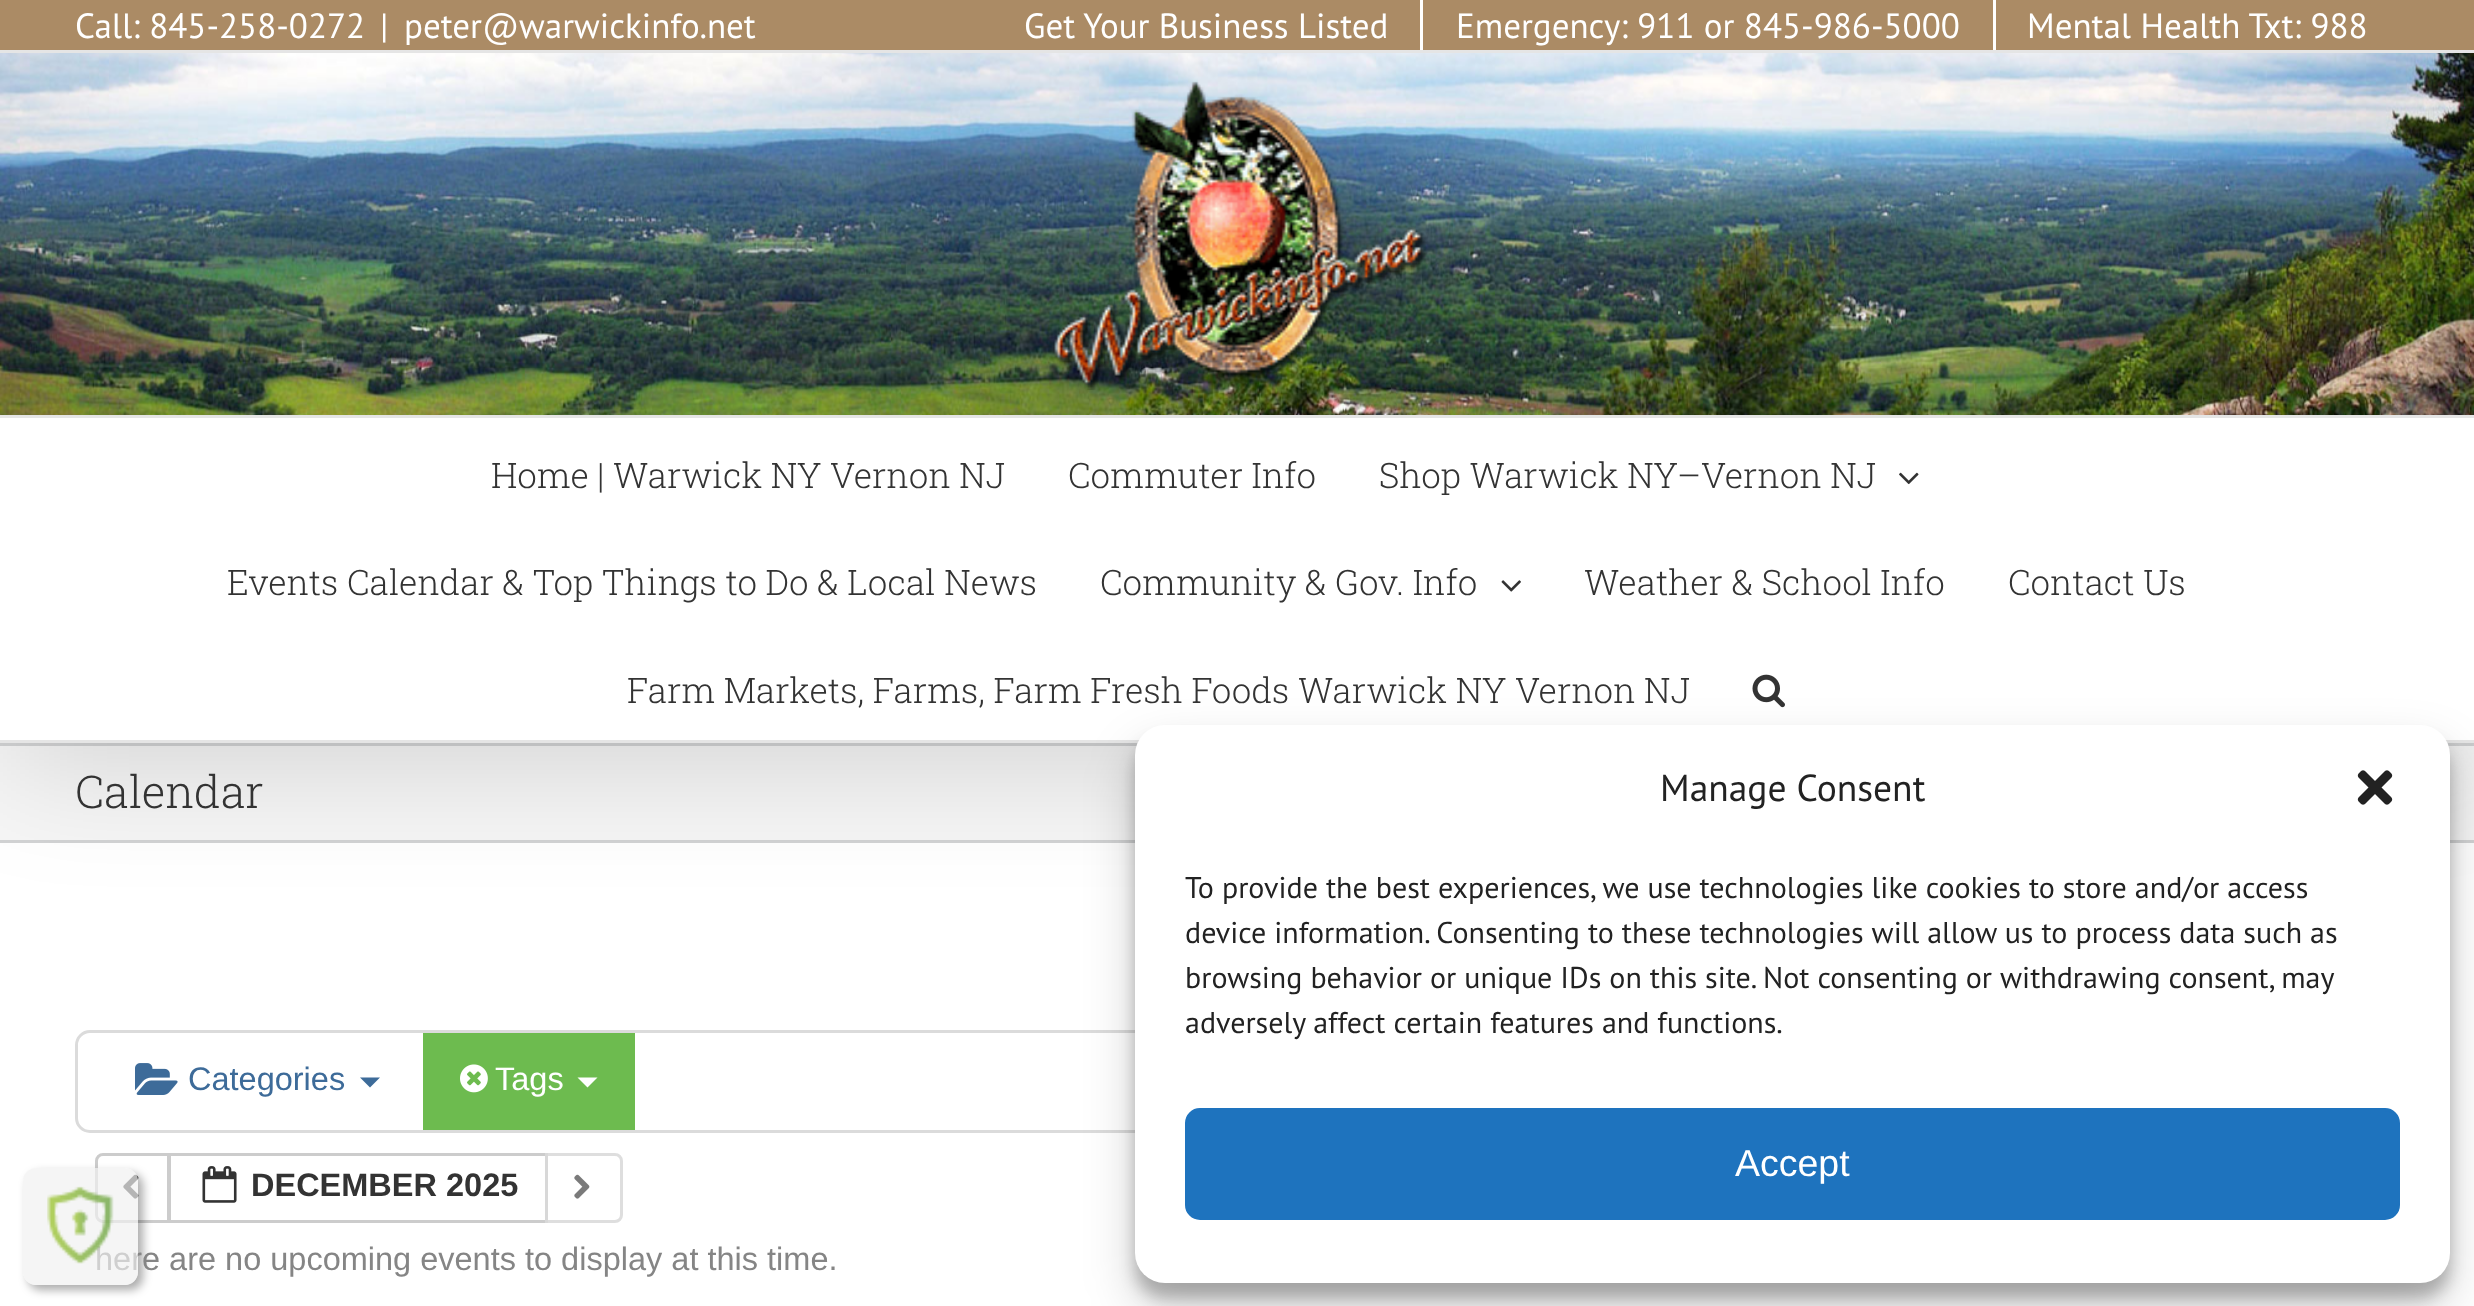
<!DOCTYPE html>
<meta charset="utf-8">
<style>body { margin: 0 } canvas { display: block }</style>
<canvas id="canvas" width="2474" height="1306"></canvas>
<img id="img1" src="images/1.png" hidden>
<img id="img2" src="images/2.png" hidden>
<img id="img3" src="images/3.png" hidden>
<img id="img4" src="images/4.png" hidden>
<img id="img5" src="images/5.png" hidden>
<img id="img6" src="images/6.png" hidden>
<img id="img7" src="images/7.png" hidden>
<img id="img8" src="images/8.png" hidden>
<img id="img9" src="images/9.png" hidden>
<img id="img10" src="images/10.png" hidden>
<img id="img11" src="images/11.png" hidden>
<img id="img12" src="images/12.png" hidden>
<script>
window.onload = function () {
    const canvas = document.getElementById('canvas');
    const context = canvas.getContext('2d');
    context.miterLimit = 4;
    context.fontKerning = 'normal';

    context.fillStyle = 'rgb(255, 255, 255)';
    context.fillRect(0, 0, 2474, 1306);
    context.fillStyle = 'rgb(246, 246, 246)';
    context.fillRect(0, 746, 2474, 94);
    context.fillStyle = 'rgb(210, 211, 212)';
    context.fillRect(0, 743, 2474, 3);
    context.fillRect(0, 840, 2474, 3);
    context.fillStyle = 'rgba(0, 0, 0, 0.14)';
    context.filter = 'blur(62.5px)';
    context.beginPath();
    context.rect(5, 30, 2465, 733);
    context.fill();
    context.filter = 'none';
    context.fillStyle = 'rgb(171, 139, 101)';
    context.fillRect(0, 0, 2474, 50);
    context.fillStyle = 'rgb(229, 229, 229)';
    context.fillRect(0, 50, 2474, 3);
    context.fillStyle = 'rgb(255, 255, 255)';
    context.fillRect(1420, 0, 3, 50);
    context.fillRect(1993, 0, 3, 50);
    context.drawImage(document.getElementById('img1'), 0, 53, 2474, 362);
    context.fillStyle = 'rgb(229, 229, 229)';
    context.fillRect(0, 415, 2474, 3);
    context.drawImage(document.getElementById('img2'), 1052, 81, 376, 309);
    context.fillStyle = 'rgb(255, 255, 255)';
    context.fillRect(0, 418, 2474, 322);
    context.fillStyle = 'rgb(229, 229, 229)';
    context.fillRect(0, 740, 2474, 3);
    context.drawImage(document.getElementById('img3'), 1899, 472, 20, 13);
    context.drawImage(document.getElementById('img4'), 1501, 580, 20, 12);
    context.drawImage(document.getElementById('img5'), 1752, 674, 33, 34);
    context.beginPath();
    context.roundRect(76.5, 1031.5, 2322, 100, 13.5);
    context.strokeStyle = 'rgb(219, 219, 219)';
    context.lineWidth = 3;
    context.stroke();
    context.drawImage(document.getElementById('img6'), 135, 1063, 43, 32);
    context.fillStyle = 'rgb(61, 107, 153)';
    context.beginPath();
    context.moveTo(360, 1077.5);
    context.lineTo(380, 1077.5);
    context.lineTo(370, 1087.5);
    context.closePath();
    context.fill();
    context.fillStyle = 'rgb(109, 187, 79)';
    context.fillRect(423, 1033, 212, 97);
    context.drawImage(document.getElementById('img7'), 460, 1064, 28, 29);
    context.fillStyle = 'rgb(255, 255, 255)';
    context.beginPath();
    context.moveTo(577.5, 1077.5);
    context.lineTo(597.5, 1077.5);
    context.lineTo(587.5, 1087.5);
    context.closePath();
    context.fill();
    context.beginPath();
    context.roundRect(96.5, 1154.5, 72, 67, [6.5, 0, 0, 6.5]);
    context.strokeStyle = 'rgb(204, 204, 204)';
    context.stroke();
    context.drawImage(document.getElementById('img8'), 123, 1174, 16, 25);
    context.strokeRect(169.5, 1154.5, 377, 67);
    context.drawImage(document.getElementById('img9'), 202, 1166, 35, 37);
    context.fillStyle = 'rgba(255, 255, 255, 0.65)';
    context.beginPath();
    context.roundRect(545, 1153, 78, 70, [0, 8, 8, 0]);
    context.fill();
    context.beginPath();
    context.roundRect(546.5, 1154.5, 75, 67, [0, 6.5, 6.5, 0]);
    context.strokeStyle = 'rgba(204, 204, 204, 0.65)';
    context.stroke();
    context.drawImage(document.getElementById('img10'), 574, 1174, 16, 25);
    context.fillStyle = 'rgba(0, 0, 0, 0.23)';
    context.filter = 'blur(7.5px)';
    context.beginPath();
    context.roundRect(1135, 740, 1315, 558, 30);
    context.fill();
    context.filter = 'none';
    context.fillStyle = 'rgba(0, 0, 0, 0.19)';
    context.filter = 'blur(25px)';
    context.beginPath();
    context.roundRect(1135, 750, 1315, 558, 30);
    context.fill();
    context.filter = 'none';
    context.fillStyle = 'rgb(255, 255, 255)';
    context.beginPath();
    context.roundRect(1135, 725, 1315, 558, 30);
    context.fill();
    context.drawImage(document.getElementById('img11'), 2357, 770, 36, 35);
    context.fillStyle = 'rgb(30, 115, 190)';
    context.beginPath();
    context.roundRect(1186.5, 1109.5, 1212, 109, 13.5);
    context.fill();
    context.strokeStyle = 'rgb(30, 115, 190)';
    context.stroke();
    context.save();
    context.beginPath();
    context.moveTo(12, 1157);
    context.lineTo(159, 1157);
    context.lineTo(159, 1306);
    context.lineTo(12, 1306);
    context.closePath();
    context.moveTo(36, 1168);
    context.lineTo(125, 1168);
    context.bezierCurveTo(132, 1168, 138, 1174, 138, 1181);
    context.lineTo(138, 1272);
    context.bezierCurveTo(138, 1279, 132, 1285, 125, 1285);
    context.lineTo(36, 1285);
    context.bezierCurveTo(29, 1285, 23, 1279, 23, 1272);
    context.lineTo(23, 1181);
    context.bezierCurveTo(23, 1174, 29, 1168, 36, 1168);
    context.closePath();
    context.clip('evenodd');
    context.fillStyle = 'rgba(0, 0, 0, 0.33)';
    context.filter = 'blur(5px)';
    context.beginPath();
    context.roundRect(28, 1173, 115, 117, 13);
    context.fill();
    context.filter = 'none';
    context.restore();
    context.font = '35px PT Sans';
    context.fillStyle = 'rgb(255, 255, 255)';
    context.fillText('Call: 845-258-0272', 75, 38);
    context.fillText('|', 380, 38);
    context.fillText('peter@warwickinfo.net', 404, 38);
    context.fillText('Get Your Business Listed', 1024, 38);
    context.fillText('Emergency: 911 or 845-986-5000', 1456, 38);
    context.fillText('Mental Health Txt: 988', 2027, 38);
    context.font = '300 35px Roboto Slab';
    context.fillStyle = 'rgb(51, 51, 51)';
    context.fillText('Home | Warwick NY Vernon NJ', 491, 488);
    context.fillText('Commuter Info', 1068, 488);
    context.fillText('Shop Warwick NY–Vernon NJ', 1379, 488);
    context.fillText('Events Calendar & Top Things to Do & Local News', 227, 595);
    context.fillText('Community & Gov. Info', 1100, 595);
    context.fillText('Weather & School Info', 1584, 595);
    context.fillText('Contact Us', 2008, 595);
    context.fillText('Farm Markets, Farms, Farm Fresh Foods Warwick NY Vernon NJ', 627, 703);
    context.font = '300 45px Roboto Slab';
    context.fillText('Calendar', 75, 808);
    context.font = '32.5px Liberation Sans';
    context.fillStyle = 'rgb(61, 107, 153)';
    context.fillText('Categories', 188, 1090);
    context.fillStyle = 'rgb(255, 255, 255)';
    context.fillText('Tags', 495, 1090);
    context.font = 'bold 32.5px Liberation Sans';
    context.fillStyle = 'rgb(51, 51, 51)';
    context.fillText('DECEMBER 2025', 251, 1196);
    context.font = '32.5px Liberation Sans';
    context.fillStyle = 'rgb(133, 133, 133)';
    context.fillText('here are no upcoming events to display at this time.', 95, 1270);
    context.font = '37.5px PT Sans';
    context.fillStyle = 'rgb(34, 34, 34)';
    context.fillText('Manage Consent', 1660, 801);
    context.font = '30px PT Sans';
    context.fillText('To provide the best experiences, we use technologies like cookies to store and/or access', 1185, 898);
    context.fillText('device information. Consenting to these technologies will allow us to process data such as', 1185, 943);
    context.fillText('browsing behavior or unique IDs on this site. Not consenting or withdrawing consent, may', 1185, 988);
    context.fillText('adversely affect certain features and functions.', 1185, 1033);
    context.font = '37.5px Liberation Sans';
    context.fillStyle = 'rgb(255, 255, 255)';
    context.fillText('Accept', 1735, 1176);
    context.fillStyle = 'rgba(241, 241, 241, 0.69)';
    context.beginPath();
    context.roundRect(23, 1168, 115, 117, 13);
    context.fill();
    context.drawImage(document.getElementById('img12'), 47, 1186, 67, 78);
};
</script>
